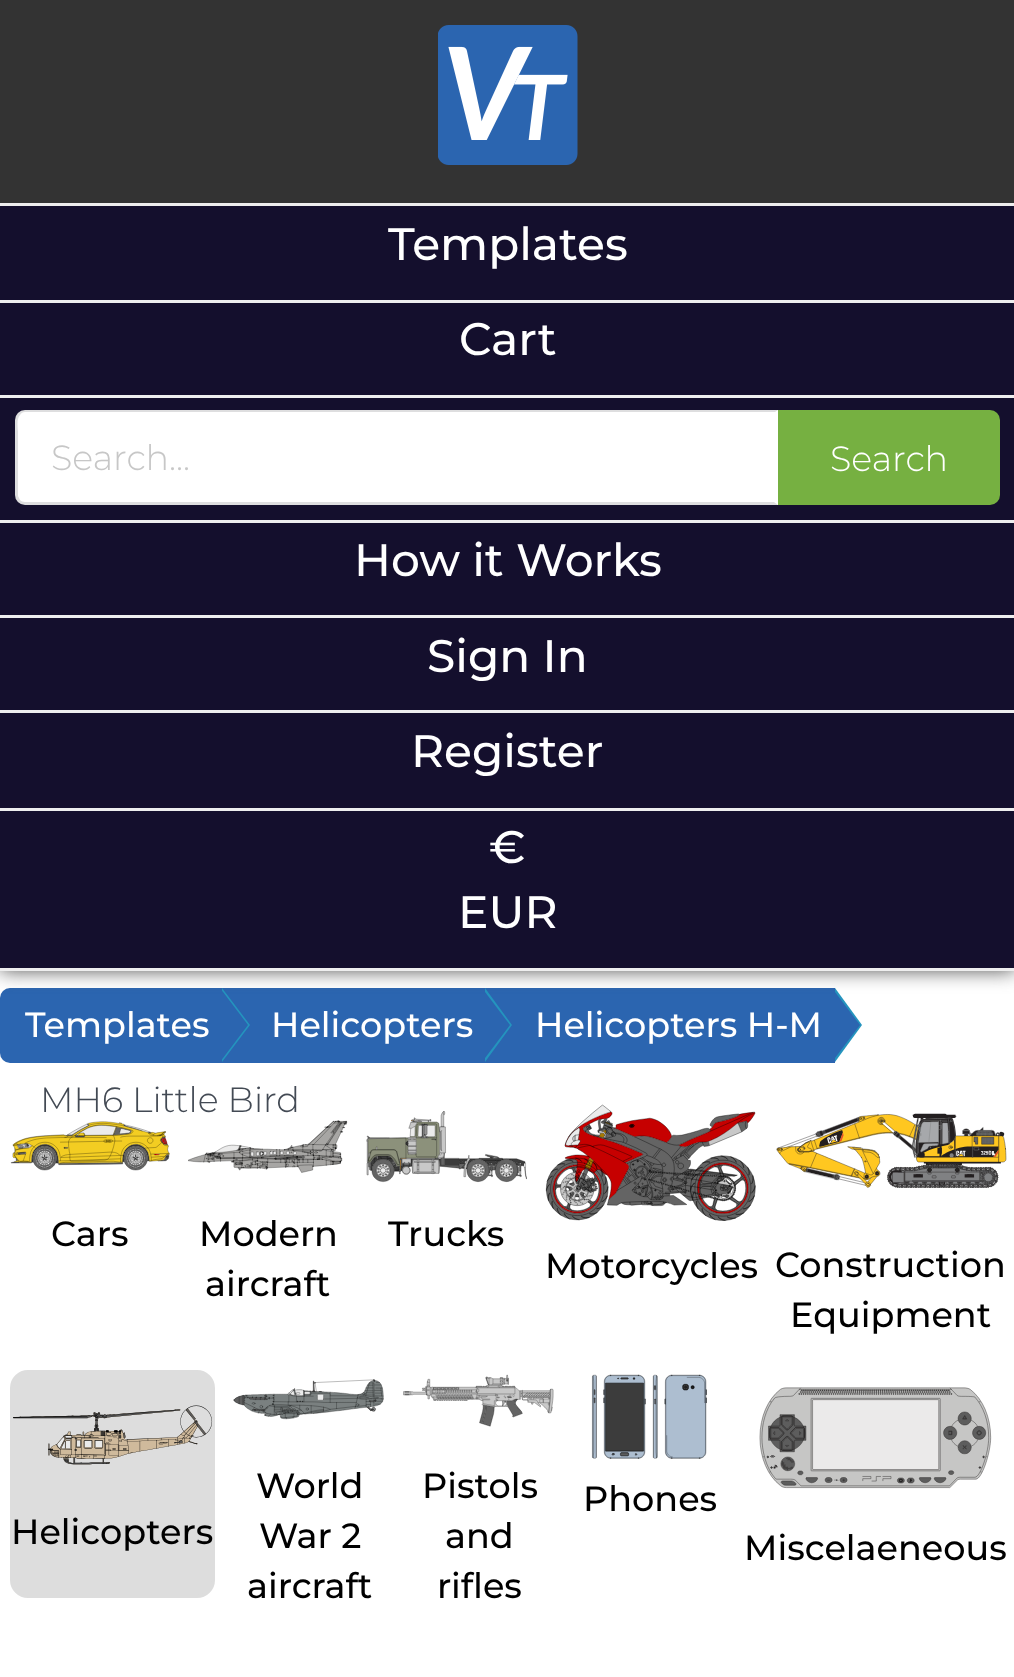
<!DOCTYPE html>
<meta charset="utf-8">
<style>body { margin: 0 } canvas { display: block }</style>
<canvas id="canvas" width="1014" height="1677"></canvas>
<img id="img1" src="images/1.png" hidden>
<img id="img2" src="images/2.png" hidden>
<img id="img3" src="images/3.png" hidden>
<img id="img4" src="images/4.png" hidden>
<img id="img5" src="images/5.png" hidden>
<img id="img6" src="images/6.png" hidden>
<img id="img7" src="images/7.png" hidden>
<img id="img8" src="images/8.png" hidden>
<img id="img9" src="images/9.png" hidden>
<img id="img10" src="images/10.png" hidden>
<img id="img11" src="images/11.png" hidden>
<script>
window.onload = function () {
    const canvas = document.getElementById('canvas');
    const context = canvas.getContext('2d');
    context.miterLimit = 4;
    context.fontKerning = 'normal';

    context.fillStyle = 'rgb(255, 255, 255)';
    context.fillRect(0, 0, 1014, 1677);
    context.fillStyle = 'rgb(43, 101, 176)';
    context.beginPath();
    context.roundRect(0, 988, 223, 75, [10, 0, 0, 10]);
    context.fill();
    context.fillRect(223, 988, 612, 75);
    context.fillStyle = 'rgb(36, 148, 190)';
    context.beginPath();
    context.moveTo(222, 1062);
    context.lineTo(222, 988);
    context.lineTo(250, 1025);
    context.closePath();
    context.fill();
    context.fillStyle = 'rgb(43, 101, 176)';
    context.beginPath();
    context.moveTo(220, 1062);
    context.lineTo(220, 988);
    context.lineTo(248, 1025);
    context.closePath();
    context.fill();
    context.fillStyle = 'rgb(36, 148, 190)';
    context.beginPath();
    context.moveTo(485, 1062);
    context.lineTo(485, 988);
    context.lineTo(512, 1025);
    context.closePath();
    context.fill();
    context.fillStyle = 'rgb(43, 101, 176)';
    context.beginPath();
    context.moveTo(482, 1062);
    context.lineTo(482, 988);
    context.lineTo(510, 1025);
    context.closePath();
    context.fill();
    context.fillStyle = 'rgb(36, 148, 190)';
    context.beginPath();
    context.moveTo(835, 1062);
    context.lineTo(835, 988);
    context.lineTo(862, 1025);
    context.closePath();
    context.fill();
    context.fillStyle = 'rgb(43, 101, 176)';
    context.beginPath();
    context.moveTo(832, 1062);
    context.lineTo(832, 988);
    context.lineTo(860, 1025);
    context.closePath();
    context.fill();
    context.fillStyle = 'rgb(68, 68, 68)';
    context.filter = 'blur(10px)';
    context.beginPath();
    context.rect(0, 0, 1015, 970);
    context.fill();
    context.filter = 'none';
    context.fillStyle = 'rgb(20, 15, 45)';
    context.fillRect(0, 206, 1014, 762);
    context.fillStyle = 'rgb(51, 51, 51)';
    context.fillRect(0, 0, 1014, 203);
    context.fillStyle = 'rgb(238, 238, 238)';
    context.fillRect(0, 203, 1014, 3);
    context.drawImage(document.getElementById('img1'), 438, 25, 140, 140);
    context.fillRect(0, 300, 1014, 3);
    context.fillRect(0, 395, 1014, 3);
    context.fillRect(0, 520, 1014, 3);
    context.fillStyle = 'rgb(255, 255, 255)';
    context.beginPath();
    context.roundRect(15, 410, 763, 95, [10, 0, 0, 10]);
    context.fill();
    context.fillStyle = 'rgba(34, 36, 38, 0.15)';
    context.beginPath();
    context.moveTo(25, 410);
    context.bezierCurveTo(22, 410, 20, 411, 18, 413);
    context.lineTo(20, 415);
    context.bezierCurveTo(21, 413, 23, 412, 25, 412);
    context.lineTo(775, 412);
    context.lineTo(778, 410);
    context.closePath();
    context.fill();
    context.beginPath();
    context.moveTo(778, 505);
    context.lineTo(774, 502);
    context.lineTo(25, 502);
    context.bezierCurveTo(23, 502, 21, 501, 20, 500);
    context.lineTo(18, 502);
    context.bezierCurveTo(20, 504, 22, 505, 25, 505);
    context.closePath();
    context.fill();
    context.beginPath();
    context.moveTo(15, 420);
    context.lineTo(15, 495);
    context.bezierCurveTo(15, 498, 16, 500, 18, 502);
    context.lineTo(20, 500);
    context.lineTo(18, 496);
    context.lineTo(18, 432);
    context.bezierCurveTo(18, 429, 16, 419, 20, 415);
    context.lineTo(18, 413);
    context.bezierCurveTo(16, 414, 15, 417, 15, 420);
    context.closePath();
    context.fill();
    context.fillStyle = 'rgb(118, 176, 65)';
    context.beginPath();
    context.roundRect(778, 410, 222, 95, [0, 10, 10, 0]);
    context.fill();
    context.fillStyle = 'rgb(238, 238, 238)';
    context.fillRect(0, 615, 1014, 3);
    context.fillRect(0, 710, 1014, 3);
    context.fillRect(0, 808, 1014, 3);
    context.fillRect(0, 968, 1014, 3);
    context.drawImage(document.getElementById('img2'), 10, 1121, 160, 50);
    context.drawImage(document.getElementById('img3'), 188, 1120, 160, 53);
    context.drawImage(document.getElementById('img4'), 366, 1111, 161, 72);
    context.drawImage(document.getElementById('img5'), 545, 1104, 211, 117);
    context.drawImage(document.getElementById('img6'), 776, 1113, 231, 76);
    context.drawImage(document.getElementById('img7'), 233, 1379, 151, 41);
    context.drawImage(document.getElementById('img8'), 403, 1374, 151, 53);
    context.drawImage(document.getElementById('img9'), 591, 1374, 116, 85);
    context.fillStyle = 'rgb(221, 221, 221)';
    context.beginPath();
    context.roundRect(11.5, 1371.5, 202, 225, 16.5);
    context.fill();
    context.strokeStyle = 'rgb(221, 221, 221)';
    context.lineWidth = 3;
    context.stroke();
    context.drawImage(document.getElementById('img10'), 13, 1405, 200, 60);
    context.drawImage(document.getElementById('img11'), 759, 1387, 233, 102);
    context.font = '500 45.5px Montserrat';
    context.fillStyle = 'rgb(255, 255, 255)';
    context.fillText('Templates', 388, 260);
    context.fillText('Cart', 459, 355);
    context.font = '300 35px Montserrat';
    context.fillStyle = 'rgb(199, 199, 199)';
    context.fillText('Search...', 51, 470);
    context.fillStyle = 'rgb(255, 255, 255)';
    context.fillText('Search', 830, 471);
    context.font = '500 45.5px Montserrat';
    context.fillText('How it Works', 354, 576);
    context.fillText('Sign In', 427, 672);
    context.fillText('Register', 411, 767);
    context.fillText('€', 489, 863);
    context.fillText('EUR', 458, 928);
    context.font = '500 35px Montserrat';
    context.fillText('Templates', 25, 1037);
    context.fillText('Helicopters', 271, 1037);
    context.fillText('Helicopters H-M', 535, 1037);
    context.font = '300 35px Montserrat';
    context.fillStyle = 'rgb(67, 74, 84)';
    context.fillText('MH6 Little Bird', 40, 1112);
    context.font = '500 35px Montserrat';
    context.fillStyle = 'rgb(0, 0, 0)';
    context.fillText('Cars', 51, 1246);
    context.fillText('Modern', 199, 1246);
    context.fillText('aircraft', 205, 1296);
    context.fillText('Trucks', 388, 1246);
    context.fillText('Motorcycles', 545, 1278);
    context.fillText('Construction', 775, 1277);
    context.fillText('Equipment', 790, 1327);
    context.fillText('World', 256, 1498);
    context.fillText('War 2', 259, 1548);
    context.fillText('aircraft', 247, 1598);
    context.fillText('Pistols', 422, 1498);
    context.fillText('and', 445, 1548);
    context.fillText('rifles', 437, 1598);
    context.fillText('Phones', 583, 1511);
    context.fillText('Helicopters', 11, 1544);
    context.fillText('Miscelaeneous', 744, 1560);
};
</script>
